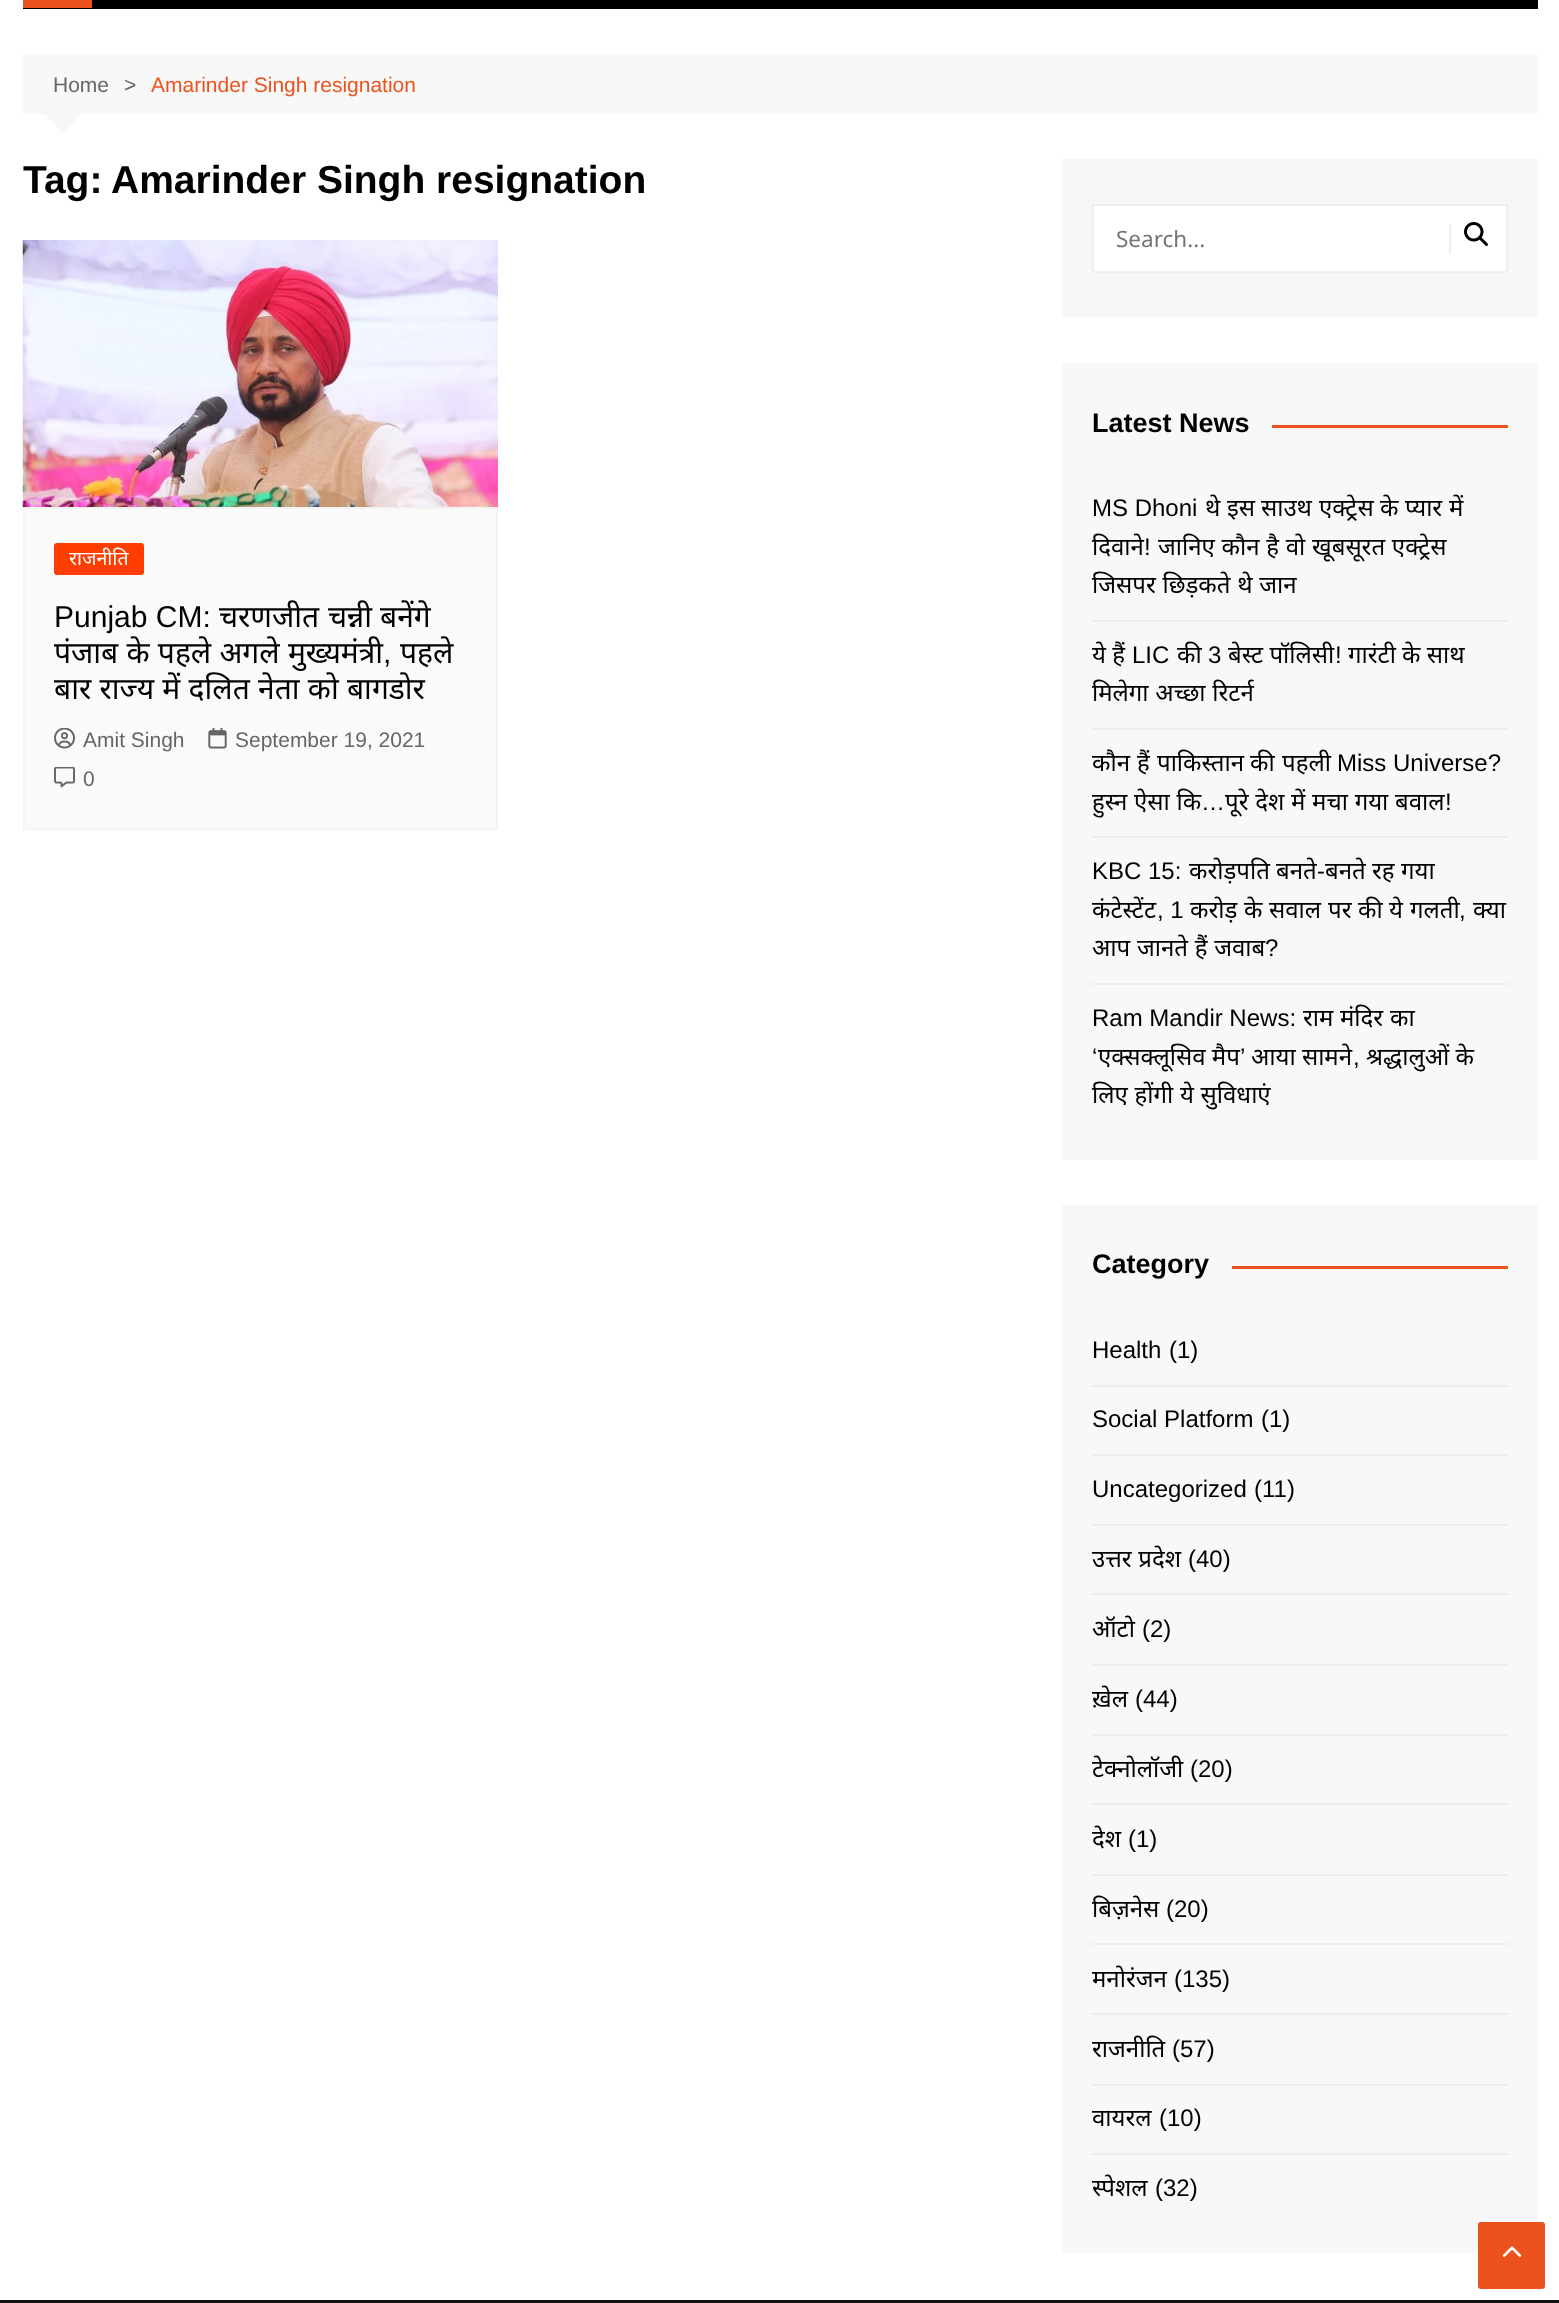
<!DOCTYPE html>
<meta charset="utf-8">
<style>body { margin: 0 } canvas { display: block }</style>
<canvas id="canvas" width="1559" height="2303"></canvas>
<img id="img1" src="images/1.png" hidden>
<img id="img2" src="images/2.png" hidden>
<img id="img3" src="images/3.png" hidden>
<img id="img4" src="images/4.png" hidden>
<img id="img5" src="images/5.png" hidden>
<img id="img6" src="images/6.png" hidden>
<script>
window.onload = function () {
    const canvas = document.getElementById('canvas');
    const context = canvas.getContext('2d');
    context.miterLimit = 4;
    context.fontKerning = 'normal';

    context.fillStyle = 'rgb(255, 255, 255)';
    context.fillRect(0, 0, 1559, 2303);
    context.fillStyle = 'rgb(0, 0, 0)';
    context.fillRect(23, 0, 1515, 9);
    context.fillStyle = 'rgb(236, 82, 30)';
    context.fillRect(23, 0, 69, 8);
    context.fillStyle = 'rgb(248, 248, 248)';
    context.fillRect(23, 54, 1515, 60);
    context.fillStyle = 'rgb(247, 247, 247)';
    context.beginPath();
    context.moveTo(45, 114);
    context.lineTo(81, 114);
    context.lineTo(63, 133.5);
    context.closePath();
    context.fill();
    context.drawImage(document.getElementById('img1'), 22, 240, 476, 267);
    context.fillStyle = 'rgb(250, 250, 250)';
    context.beginPath();
    context.rect(24, 508, 473, 321);
    context.fill();
    context.strokeStyle = 'rgb(243, 243, 243)';
    context.lineWidth = 2;
    context.stroke();
    context.fillStyle = 'rgb(255, 61, 0)';
    context.beginPath();
    context.roundRect(54, 543, 90, 32, 3);
    context.fill();
    context.drawImage(document.getElementById('img2'), 54, 728, 21, 21);
    context.drawImage(document.getElementById('img3'), 208, 728, 19, 21);
    context.drawImage(document.getElementById('img4'), 54, 767, 21, 21);
    context.fillStyle = 'rgb(247, 247, 247)';
    context.fillRect(1062, 159, 476, 159);
    context.fillStyle = 'rgb(255, 255, 255)';
    context.beginPath();
    context.rect(1093, 205, 414, 67);
    context.fill();
    context.strokeStyle = 'rgb(238, 238, 238)';
    context.stroke();
    context.fillStyle = 'rgb(238, 238, 238)';
    context.fillRect(1449, 224, 2, 30);
    context.drawImage(document.getElementById('img5'), 1464, 222, 24, 24);
    context.fillStyle = 'rgb(248, 248, 248)';
    context.fillRect(1062, 363, 476, 797);
    context.fillStyle = 'rgb(236, 82, 30)';
    context.fillRect(1272, 425, 236, 3);
    context.fillStyle = 'rgb(238, 238, 238)';
    context.fillRect(1092, 620, 416, 2);
    context.fillRect(1092, 728, 416, 2);
    context.fillRect(1092, 836, 416, 2);
    context.fillRect(1092, 983, 416, 2);
    context.fillStyle = 'rgb(248, 248, 248)';
    context.fillRect(1062, 1205, 476, 1048);
    context.fillStyle = 'rgb(236, 82, 30)';
    context.fillRect(1232, 1266, 276, 3);
    context.fillStyle = 'rgb(238, 238, 238)';
    context.fillRect(1092, 1385, 416, 2);
    context.fillRect(1092, 1454, 416, 2);
    context.fillRect(1092, 1524, 416, 2);
    context.fillRect(1092, 1593, 416, 2);
    context.fillRect(1092, 1664, 416, 2);
    context.fillRect(1092, 1734, 416, 2);
    context.fillRect(1092, 1803, 416, 2);
    context.fillRect(1092, 1874, 416, 2);
    context.fillRect(1092, 1943, 416, 2);
    context.fillRect(1092, 2013, 416, 2);
    context.fillRect(1092, 2084, 416, 2);
    context.fillRect(1092, 2153, 416, 2);
    context.fillStyle = 'rgb(17, 17, 17)';
    context.fillRect(0, 2300, 1559, 3);
    context.fillStyle = 'rgb(236, 82, 30)';
    context.beginPath();
    context.roundRect(1478, 2222, 67, 67, 3);
    context.fill();
    context.drawImage(document.getElementById('img6'), 1502, 2246, 20, 11);
    context.font = '21px Liberation Sans';
    context.fillStyle = 'rgb(102, 102, 102)';
    context.fillText('Home', 53, 92);
    context.fillText('>', 124, 92);
    context.fillStyle = 'rgb(236, 82, 30)';
    context.fillText('Amarinder Singh resignation', 151, 92);
    context.save();
    context.beginPath();
    context.rect(23, 159, 994, 44);
    context.clip();
    context.font = 'bold 39px Liberation Sans';
    context.fillStyle = 'rgb(1, 1, 1)';
    context.fillText('Tag:', 23, 193);
    context.restore();
    context.font = 'bold 39px Liberation Sans';
    context.fillStyle = 'rgb(1, 1, 1)';
    context.fillText('Amarinder Singh resignation', 111, 193);
    context.font = '19.5px Noto Sans';
    context.fillStyle = 'rgb(255, 255, 255)';
    context.fillText('राजनीति', 69, 565);
    context.font = '30px Liberation Sans';
    context.fillStyle = 'rgb(1, 1, 1)';
    context.fillText('Punjab CM:', 54, 627);
    context.font = '30px Noto Sans';
    context.fillText('चरणजीत', 219, 627);
    context.fillText('चन्नी', 328, 627);
    context.fillText('बनेंगे', 380, 627);
    context.wordSpacing = '0.5px';
    context.fillText('पंजाब के पहले अगले मुख्यमंत्री', 54, 663);
    context.wordSpacing = '0px';
    context.font = '30px Liberation Sans';
    context.fillText(',', 383, 663);
    context.font = '30px Noto Sans';
    context.fillText('पहले', 400, 663);
    context.wordSpacing = '0.5px';
    context.fillText('बार राज्य में दलित नेता को बागडोर', 54, 699);
    context.wordSpacing = '0px';
    context.font = '21px Liberation Sans';
    context.fillStyle = 'rgb(102, 102, 102)';
    context.fillText('Amit Singh', 83, 747);
    context.fillText('September 19, 2021', 235, 747);
    context.fillText('0', 83, 786);
    context.font = '22.5px Noto Sans';
    context.fillStyle = 'rgb(117, 117, 117)';
    context.fillText('Search...', 1116, 247);
    context.font = 'bold 27px Liberation Sans';
    context.fillStyle = 'rgb(1, 1, 1)';
    context.fillText('Latest News', 1092, 432);
    context.font = '24px Liberation Sans';
    context.fillText('MS Dhoni', 1092, 516);
    context.font = '24px Noto Sans';
    context.fillText('थे', 1205, 516);
    context.fillText('इस', 1227, 516);
    context.fillText('साउथ', 1261, 516);
    context.fillText('एक्ट्रेस', 1319, 516);
    context.fillText('के', 1380, 516);
    context.fillText('प्यार', 1405, 516);
    context.fillText('में', 1449, 516);
    context.fillText('दिवाने', 1092, 555);
    context.font = '24px Liberation Sans';
    context.fillText('!', 1144, 555);
    context.wordSpacing = '0.5px';
    context.font = '24px Noto Sans';
    context.fillText('जानिए कौन है वो खूबसूरत एक्ट्रेस', 1158, 555);
    context.fillText('जिसपर छिड़कते थे जान', 1092, 593);
    context.wordSpacing = '0px';
    context.fillText('ये हैं', 1092, 663);
    context.font = '24px Liberation Sans';
    context.fillText('LIC', 1132, 663);
    context.font = '24px Noto Sans';
    context.fillText('की', 1177, 663);
    context.font = '24px Liberation Sans';
    context.fillText('3', 1208, 663);
    context.font = '24px Noto Sans';
    context.fillText('बेस्ट पॉलिसी', 1228, 663);
    context.font = '24px Liberation Sans';
    context.fillText('!', 1335, 663);
    context.font = '24px Noto Sans';
    context.fillText('गारंटी के साथ', 1348, 663);
    context.wordSpacing = '0.5px';
    context.fillText('मिलेगा अच्छा रिटर्न', 1092, 701);
    context.wordSpacing = '0px';
    context.fillText('कौन', 1092, 771);
    context.fillText('हैं', 1137, 771);
    context.fillText('पाकिस्तान', 1157, 771);
    context.fillText('की', 1250, 771);
    context.fillText('पहली', 1282, 771);
    context.font = '24px Liberation Sans';
    context.fillText('Miss Universe?', 1337, 771);
    context.wordSpacing = '0.5px';
    context.font = '24px Noto Sans';
    context.fillText('हुस्न ऐसा कि', 1092, 810);
    context.wordSpacing = '0px';
    context.font = '24px Liberation Sans';
    context.fillText('…', 1201, 810);
    context.wordSpacing = '0.5px';
    context.font = '24px Noto Sans';
    context.fillText('पूरे देश में मचा गया बवाल', 1225, 810);
    context.wordSpacing = '0px';
    context.font = '24px Liberation Sans';
    context.fillText('!', 1445, 810);
    context.fillText('KBC 15:', 1092, 879);
    context.font = '24px Noto Sans';
    context.fillText('करोड़पति', 1189, 879);
    context.fillText('बनते', 1276, 879);
    context.font = '24px Liberation Sans';
    context.fillText('-', 1317, 879);
    context.font = '24px Noto Sans';
    context.fillText('बनते', 1325, 879);
    context.fillText('रह', 1372, 879);
    context.fillText('गया', 1401, 879);
    context.fillText('कंटेस्टेंट', 1092, 918);
    context.font = '24px Liberation Sans';
    context.fillText(', 1', 1157, 918);
    context.font = '24px Noto Sans';
    context.fillText('करोड़', 1190, 918);
    context.fillText('के', 1244, 918);
    context.fillText('सवाल', 1269, 918);
    context.fillText('पर', 1328, 918);
    context.fillText('की', 1358, 918);
    context.fillText('ये', 1389, 918);
    context.fillText('गलती', 1410, 918);
    context.font = '24px Liberation Sans';
    context.fillText(',', 1459, 918);
    context.font = '24px Noto Sans';
    context.fillText('क्या', 1473, 918);
    context.wordSpacing = '0.5px';
    context.fillText('आप जानते हैं जवाब', 1092, 956);
    context.wordSpacing = '0px';
    context.font = '24px Liberation Sans';
    context.fillText('?', 1265, 956);
    context.fillText('Ram Mandir News:', 1092, 1026);
    context.font = '24px Noto Sans';
    context.fillText('राम', 1303, 1026);
    context.fillText('मंदिर', 1340, 1026);
    context.fillText('का', 1390, 1026);
    context.font = '24px Liberation Sans';
    context.fillText('‘', 1092, 1065);
    context.font = '24px Noto Sans';
    context.fillText('एक्सक्लूसिव मैप', 1098, 1065);
    context.font = '24px Liberation Sans';
    context.fillText('’', 1240, 1065);
    context.font = '24px Noto Sans';
    context.fillText('आया सामने', 1251, 1065);
    context.fillText('श्रद्धालुओं के', 1366, 1065);
    context.font = '24px Liberation Sans';
    context.fillText(',', 1353, 1065);
    context.wordSpacing = '0.5px';
    context.font = '24px Noto Sans';
    context.fillText('लिए होंगी ये सुविधाएं', 1092, 1103);
    context.wordSpacing = '0px';
    context.font = 'bold 27px Liberation Sans';
    context.fillText('Category', 1092, 1273);
    context.font = '24px Liberation Sans';
    context.fillText('Health', 1092, 1358);
    context.fillText('(1)', 1169, 1358);
    context.fillText('Social Platform', 1092, 1427);
    context.fillText('(1)', 1261, 1427);
    context.fillText('Uncategorized', 1092, 1497);
    context.fillText('(11)', 1254, 1497);
    context.wordSpacing = '0.5px';
    context.font = '24px Noto Sans';
    context.fillText('उत्तर प्रदेश', 1092, 1567);
    context.wordSpacing = '0px';
    context.font = '24px Liberation Sans';
    context.fillText('(40)', 1188, 1567);
    context.font = '24px Noto Sans';
    context.fillText('ऑटो', 1092, 1637);
    context.font = '24px Liberation Sans';
    context.fillText('(2)', 1142, 1637);
    context.font = '24px Noto Sans';
    context.fillText('ख़ेल', 1092, 1707);
    context.font = '24px Liberation Sans';
    context.fillText('(44)', 1135, 1707);
    context.font = '24px Noto Sans';
    context.fillText('टेक्नोलॉजी', 1092, 1777);
    context.font = '24px Liberation Sans';
    context.fillText('(20)', 1190, 1777);
    context.font = '24px Noto Sans';
    context.fillText('देश', 1092, 1847);
    context.font = '24px Liberation Sans';
    context.fillText('(1)', 1128, 1847);
    context.font = '24px Noto Sans';
    context.fillText('बिज़नेस', 1092, 1917);
    context.font = '24px Liberation Sans';
    context.fillText('(20)', 1166, 1917);
    context.font = '24px Noto Sans';
    context.fillText('मनोरंजन', 1092, 1987);
    context.font = '24px Liberation Sans';
    context.fillText('(135)', 1174, 1987);
    context.font = '24px Noto Sans';
    context.fillText('राजनीति', 1092, 2057);
    context.font = '24px Liberation Sans';
    context.fillText('(57)', 1172, 2057);
    context.font = '24px Noto Sans';
    context.fillText('वायरल', 1092, 2126);
    context.font = '24px Liberation Sans';
    context.fillText('(10)', 1159, 2126);
    context.font = '24px Noto Sans';
    context.fillText('स्पेशल', 1092, 2196);
    context.font = '24px Liberation Sans';
    context.fillText('(32)', 1155, 2196);
};
</script>
